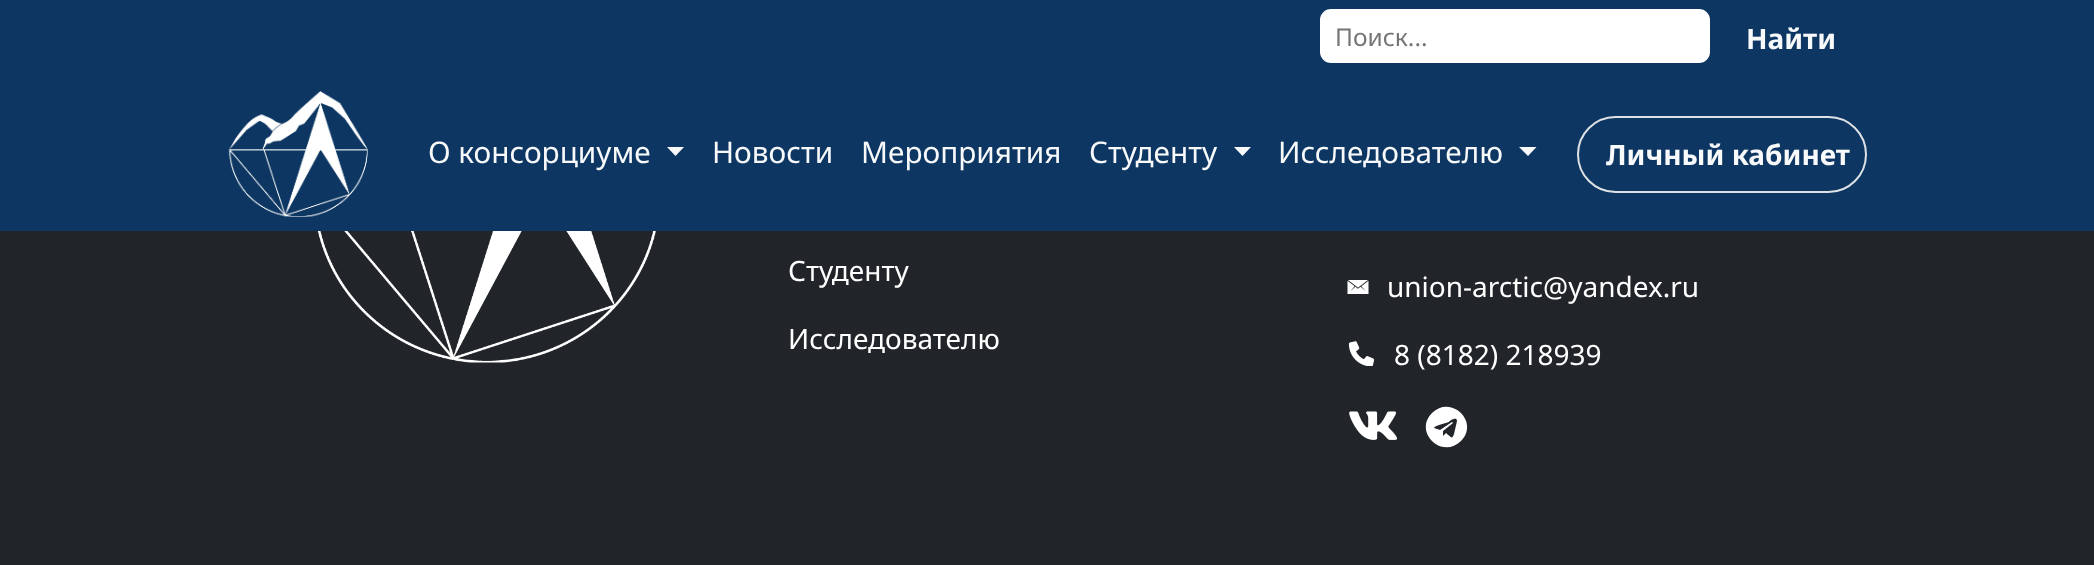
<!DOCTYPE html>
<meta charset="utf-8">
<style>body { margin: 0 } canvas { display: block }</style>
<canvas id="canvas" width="2094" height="565"></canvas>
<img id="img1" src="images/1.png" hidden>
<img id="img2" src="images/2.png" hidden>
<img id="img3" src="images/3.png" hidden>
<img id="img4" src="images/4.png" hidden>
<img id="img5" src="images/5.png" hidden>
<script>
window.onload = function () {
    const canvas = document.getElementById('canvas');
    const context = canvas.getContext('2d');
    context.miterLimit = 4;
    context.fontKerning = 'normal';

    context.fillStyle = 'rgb(33, 37, 41)';
    context.fillRect(0, 0, 2094, 565);
    context.fillStyle = 'rgb(13, 55, 98)';
    context.fillRect(0, 0, 2094, 231);
    context.fillStyle = 'rgb(255, 255, 255)';
    context.beginPath();
    context.roundRect(1321, 10, 388, 52, 10);
    context.fill();
    context.strokeStyle = 'rgb(255, 255, 255)';
    context.lineWidth = 2;
    context.stroke();
    context.drawImage(document.getElementById('img1'), 228, 91, 140, 126);
    context.fillStyle = 'rgb(248, 249, 250)';
    context.beginPath();
    context.moveTo(667, 147);
    context.lineTo(684, 147);
    context.lineTo(675.5, 156);
    context.closePath();
    context.fill();
    context.beginPath();
    context.moveTo(1234, 147);
    context.lineTo(1251, 147);
    context.lineTo(1242.5, 156);
    context.closePath();
    context.fill();
    context.beginPath();
    context.moveTo(1519, 147);
    context.lineTo(1536.5, 147);
    context.lineTo(1528, 156);
    context.closePath();
    context.fill();
    context.beginPath();
    context.roundRect(1578, 117, 288, 75, 37.5);
    context.strokeStyle = 'rgb(222, 226, 230)';
    context.stroke();
    context.drawImage(document.getElementById('img2'), 317, 231, 339, 132);
    context.drawImage(document.getElementById('img3'), 1347, 280, 22, 14);
    context.drawImage(document.getElementById('img4'), 1348, 341, 27, 25);
    context.drawImage(document.getElementById('img5'), 1349, 411, 48, 29);
    context.fillStyle = 'rgb(255, 255, 255)';
    context.beginPath();
    context.moveTo(1432, 413);
    context.bezierCurveTo(1451, 394, 1480, 422, 1461, 441);
    context.bezierCurveTo(1442, 460, 1413, 432, 1432, 413);
    context.closePath();
    context.moveTo(1457, 421);
    context.bezierCurveTo(1457, 416, 1449, 421, 1449, 422);
    context.lineTo(1439, 425);
    context.bezierCurveTo(1431, 428, 1434, 428, 1440, 430);
    context.lineTo(1452, 422);
    context.lineTo(1453, 423);
    context.lineTo(1443, 431);
    context.lineTo(1443, 436);
    context.lineTo(1446, 433);
    context.bezierCurveTo(1451, 437, 1452, 440, 1454, 434);
    context.closePath();
    context.fill();
    context.font = '24.5px Noto Sans';
    context.fillStyle = 'rgb(117, 117, 117)';
    context.fillText('Поиск...', 1335, 46);
    context.font = 'bold 28px Noto Sans';
    context.fillStyle = 'rgb(248, 249, 250)';
    context.fillText('Найти', 1746, 49);
    context.font = '29.75px Noto Sans';
    context.fillText('О консорциуме', 428, 163);
    context.fillText('Новости', 712, 163);
    context.fillText('Мероприятия', 861, 163);
    context.fillText('Студенту', 1089, 163);
    context.fillText('Исследователю', 1278, 163);
    context.font = 'bold 28px Noto Sans';
    context.fillText('Личный кабинет', 1606, 165);
    context.font = '28px Noto Sans';
    context.fillStyle = 'rgb(255, 255, 255)';
    context.fillText('Студенту', 788, 281);
    context.fillText('Исследователю', 788, 349);
    context.fillText('union-arctic@yandex.ru', 1387, 297);
    context.fillText('8 (8182) 218939', 1394, 365);
};
</script>
